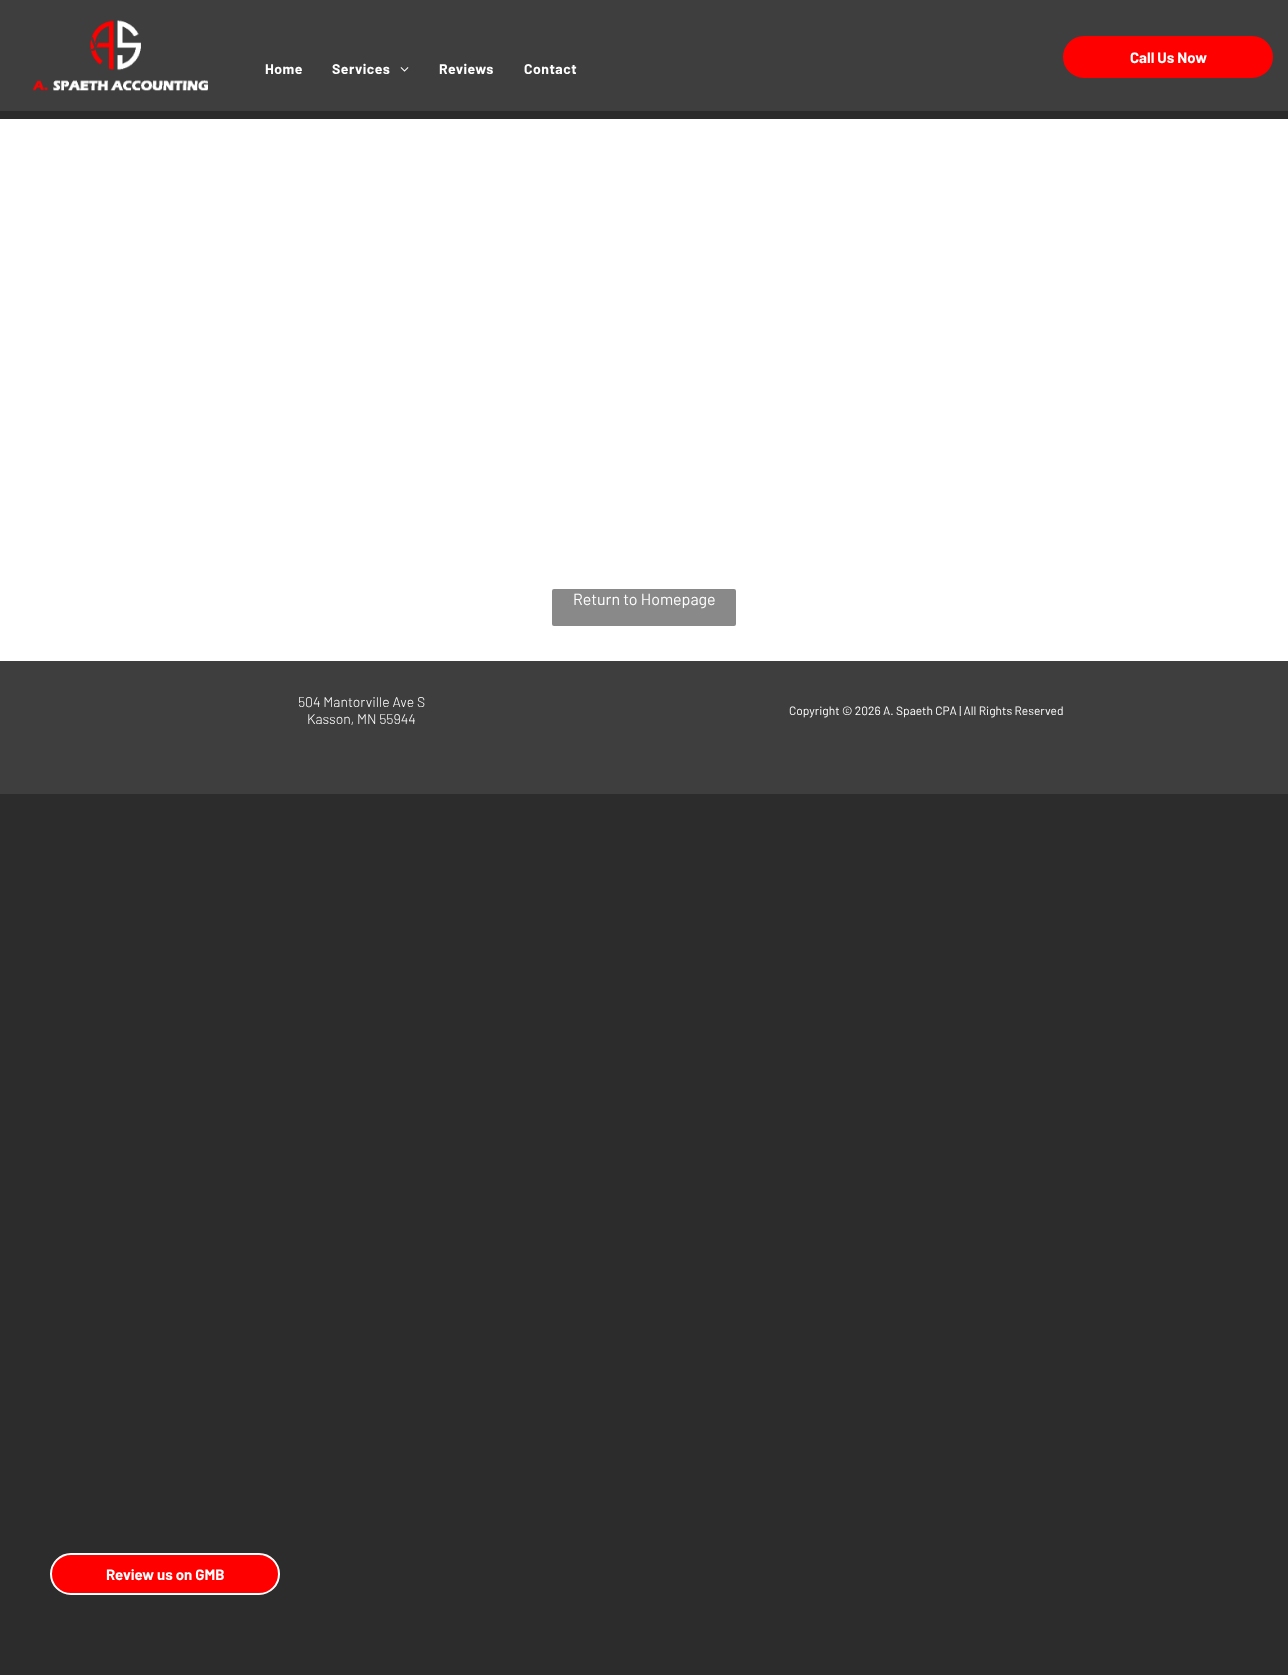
<!DOCTYPE html>
<meta charset="utf-8">
<style>body { margin: 0 } canvas { display: block }</style>
<canvas id="canvas" width="1288" height="1675"></canvas>
<img id="img1" src="images/1.png" hidden>
<img id="img2" src="images/2.png" hidden>
<script>
window.onload = function () {
    const canvas = document.getElementById('canvas');
    const context = canvas.getContext('2d');
    context.miterLimit = 4;
    context.fontKerning = 'normal';

    context.fillStyle = 'rgb(44, 44, 44)';
    context.fillRect(0, 0, 1288, 1675);
    context.fillStyle = 'rgb(62, 62, 62)';
    context.fillRect(0, 0, 1288, 111);
    context.drawImage(document.getElementById('img1'), 32, 20, 176, 71);
    context.fillStyle = 'rgb(255, 0, 0)';
    context.beginPath();
    context.roundRect(1064, 37, 208, 40, 20);
    context.fill();
    context.strokeStyle = 'rgb(255, 0, 0)';
    context.lineWidth = 2;
    context.stroke();
    context.drawImage(document.getElementById('img2'), 400, 67, 9, 5);
    context.fillStyle = 'rgb(255, 255, 255)';
    context.fillRect(0, 119, 1288, 542);
    context.fillStyle = 'rgb(137, 137, 137)';
    context.beginPath();
    context.roundRect(552, 589, 184, 37, 2);
    context.fill();
    context.fillStyle = 'rgb(62, 62, 62)';
    context.fillRect(0, 661, 1288, 133);
    context.fillStyle = 'rgb(255, 0, 0)';
    context.beginPath();
    context.roundRect(51, 1554, 228, 40, 20);
    context.fill();
    context.strokeStyle = 'rgb(255, 255, 255)';
    context.stroke();
    context.font = 'bold 19px Liberation Sans';
    context.fillStyle = 'rgb(81, 56, 56)';
    context.fillText('y', 90, 47);
    context.font = 'bold 15px Barlow';
    context.fillStyle = 'rgb(255, 255, 255)';
    context.fillText('Call Us Now', 1130, 63);
    context.letterSpacing = '0.5px';
    context.font = 'bold 14px Barlow';
    context.fillText('Home', 265, 74);
    context.fillText('Services', 332, 74);
    context.fillText('Reviews', 439, 74);
    context.fillText('Contact', 524, 74);
    context.letterSpacing = '0px';
    context.font = '16px Barlow';
    context.fillText('Return to Homepage', 573, 605);
    context.font = '300 14px Barlow';
    context.fillText('504 Mantorville Ave S', 298, 707);
    context.fillText('Kasson, MN 55944', 307, 724);
    context.font = '12px Barlow';
    context.fillText('Copyright © 2026 A. Spaeth CPA | All Rights Reserved', 789, 715);
    context.font = 'bold 15px Barlow';
    context.fillText('Review us on GMB', 106, 1580);
};
</script>
